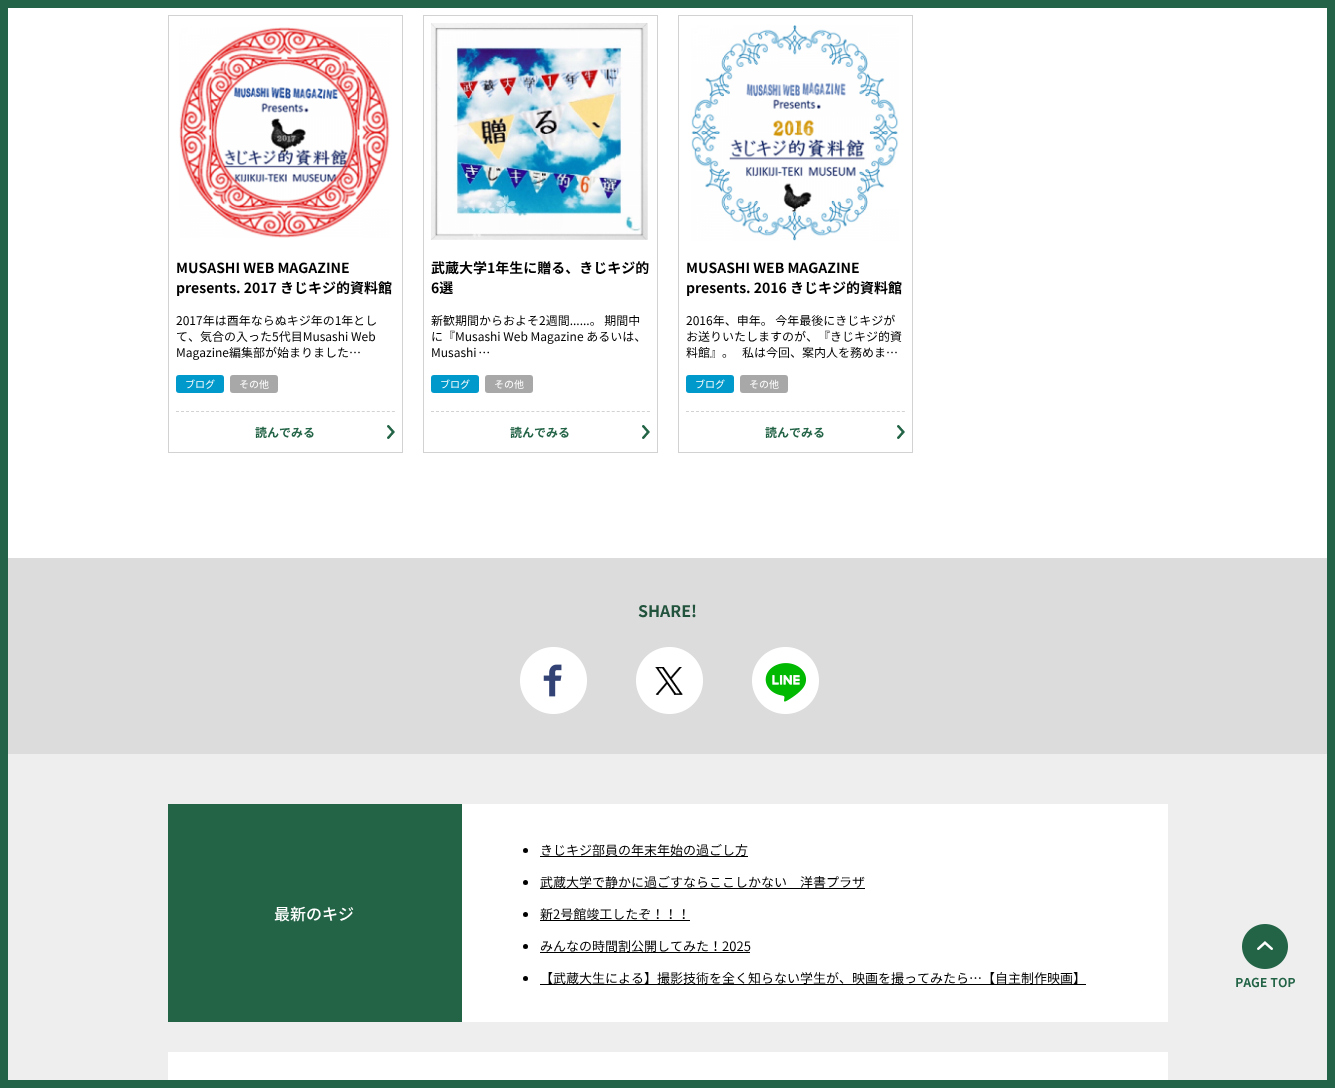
<!DOCTYPE html>
<meta charset="utf-8">
<style>body { margin: 0 } canvas { display: block }</style>
<canvas id="canvas" width="1335" height="1088"></canvas>
<img id="img1" src="images/1.png" hidden>
<img id="img2" src="images/2.png" hidden>
<img id="img3" src="images/3.png" hidden>
<img id="img4" src="images/4.png" hidden>
<img id="img5" src="images/5.png" hidden>
<img id="img6" src="images/6.png" hidden>
<img id="img7" src="images/7.png" hidden>
<img id="img8" src="images/8.png" hidden>
<script>
window.onload = function () {
    const canvas = document.getElementById('canvas');
    const context = canvas.getContext('2d');
    context.miterLimit = 4;
    context.fontKerning = 'none';

    context.fillStyle = 'rgb(255, 255, 255)';
    context.fillRect(0, 0, 1335, 1088);
    context.fillStyle = 'rgb(35, 99, 72)';
    context.fillRect(0, 0, 1335, 8);
    context.fillRect(0, 1080, 1335, 8);
    context.fillRect(0, 0, 8, 1088);
    context.strokeStyle = 'rgb(210, 210, 210)';
    context.strokeRect(168.5, 15.5, 234, 437);
    context.drawImage(document.getElementById('img1'), 179, 27, 211, 211);
    context.fillStyle = 'rgb(0, 153, 203)';
    context.beginPath();
    context.roundRect(176, 375, 48, 18, 3);
    context.fill();
    context.fillStyle = 'rgb(168, 168, 168)';
    context.beginPath();
    context.roundRect(230, 375, 48, 18, 3);
    context.fill();
    context.drawImage(document.getElementById('img2'), 387, 425, 8, 14);
    context.beginPath();
    context.moveTo(176, 411.5);
    context.lineTo(395, 411.5);
    context.setLineDash([3, 2.02]);
    context.stroke();
    context.setLineDash([]);
    context.strokeRect(423.5, 15.5, 234, 437);
    context.drawImage(document.getElementById('img3'), 431, 23, 217, 217);
    context.fillStyle = 'rgb(0, 153, 203)';
    context.beginPath();
    context.roundRect(431, 375, 48, 18, 3);
    context.fill();
    context.fillStyle = 'rgb(168, 168, 168)';
    context.beginPath();
    context.roundRect(485, 375, 48, 18, 3);
    context.fill();
    context.drawImage(document.getElementById('img2'), 642, 425, 8, 14);
    context.beginPath();
    context.moveTo(431, 411.5);
    context.lineTo(650, 411.5);
    context.setLineDash([3, 2.02]);
    context.stroke();
    context.setLineDash([]);
    context.strokeRect(678.5, 15.5, 234, 437);
    context.drawImage(document.getElementById('img4'), 691, 25, 208, 216);
    context.fillStyle = 'rgb(0, 153, 203)';
    context.beginPath();
    context.roundRect(686, 375, 48, 18, 3);
    context.fill();
    context.fillStyle = 'rgb(168, 168, 168)';
    context.beginPath();
    context.roundRect(740, 375, 48, 18, 3);
    context.fill();
    context.drawImage(document.getElementById('img2'), 897, 425, 8, 14);
    context.beginPath();
    context.moveTo(686, 411.5);
    context.lineTo(905, 411.5);
    context.setLineDash([3, 2.02]);
    context.stroke();
    context.fillStyle = 'rgb(220, 220, 220)';
    context.fillRect(8, 558, 1319, 196);
    context.drawImage(document.getElementById('img5'), 520, 647, 67, 67);
    context.drawImage(document.getElementById('img6'), 636, 647, 67, 67);
    context.drawImage(document.getElementById('img7'), 752, 647, 67, 67);
    context.fillStyle = 'rgb(238, 238, 238)';
    context.fillRect(8, 754, 1319, 326);
    context.fillStyle = 'rgb(35, 100, 71)';
    context.fillRect(168, 804, 294, 218);
    context.fillStyle = 'rgb(255, 255, 255)';
    context.fillRect(462, 804, 706, 218);
    context.fillStyle = 'rgb(0, 0, 0)';
    context.beginPath();
    context.arc(525.5, 850.5, 2.5, 0, 2 * Math.PI);
    context.fill();
    context.fillRect(540, 856, 208, 1);
    context.beginPath();
    context.arc(525.5, 882.5, 2.5, 0, 2 * Math.PI);
    context.fill();
    context.fillRect(540, 888, 325, 1);
    context.beginPath();
    context.arc(525.5, 914.5, 2.5, 0, 2 * Math.PI);
    context.fill();
    context.fillRect(540, 920, 150, 1);
    context.beginPath();
    context.arc(525.5, 946.5, 2.5, 0, 2 * Math.PI);
    context.fill();
    context.fillRect(540, 952, 210, 1);
    context.beginPath();
    context.arc(525.5, 978.5, 2.5, 0, 2 * Math.PI);
    context.fill();
    context.fillRect(540, 984, 546, 1);
    context.fillStyle = 'rgb(255, 255, 255)';
    context.fillRect(168, 1052, 1000, 28);
    context.drawImage(document.getElementById('img8'), 1236, 924, 59, 64);
    context.fillStyle = 'rgb(35, 99, 72)';
    context.fillRect(1327, 0, 8, 1088);
    context.font = 'bold 14px Noto Sans JP';
    context.fillStyle = 'rgb(0, 0, 0)';
    context.fillText('MUSASHI WEB MAGAZINE', 176, 273);
    context.fillText('presents. 2017 きじキジ的資料館', 176, 293);
    context.font = '12px Noto Sans JP';
    context.fillText('2017年は酉年ならぬキジ年の1年とし', 176, 325);
    context.fillText('て、気合の入った5代目Musashi Web', 176, 341);
    context.fillText('Magazine編集部が始まりました…', 176, 357);
    context.font = '10px Noto Sans JP';
    context.fillStyle = 'rgb(255, 255, 255)';
    context.fillText('ブログ', 185, 388);
    context.fillText('その他', 239, 388);
    context.font = 'bold 12px Noto Sans JP';
    context.fillStyle = 'rgb(35, 100, 71)';
    context.fillText('読んでみる', 255, 437);
    context.font = 'bold 14px Noto Sans JP';
    context.fillStyle = 'rgb(0, 0, 0)';
    context.fillText('武蔵大学1年生に贈る、きじキジ的', 431, 273);
    context.fillText('6選', 431, 293);
    context.font = '12px Noto Sans JP';
    context.fillText('新歓期間からおよそ2週間......。 期間中', 431, 325);
    context.fillText('に『Musashi Web Magazine あるいは、', 431, 341);
    context.wordSpacing = '-1px';
    context.fillText('Musashi …', 431, 357);
    context.wordSpacing = '0px';
    context.font = '10px Noto Sans JP';
    context.fillStyle = 'rgb(255, 255, 255)';
    context.fillText('ブログ', 440, 388);
    context.fillText('その他', 494, 388);
    context.font = 'bold 12px Noto Sans JP';
    context.fillStyle = 'rgb(35, 100, 71)';
    context.fillText('読んでみる', 510, 437);
    context.font = 'bold 14px Noto Sans JP';
    context.fillStyle = 'rgb(0, 0, 0)';
    context.fillText('MUSASHI WEB MAGAZINE', 686, 273);
    context.fillText('presents. 2016 きじキジ的資料館', 686, 293);
    context.font = '12px Noto Sans JP';
    context.fillText('2016年、申年。 今年最後にきじキジが', 686, 325);
    context.fillText('お送りいたしますのが、『きじキジ的資', 686, 341);
    context.fillText('料館』。   私は今回、案内人を務めま…', 686, 357);
    context.font = '10px Noto Sans JP';
    context.fillStyle = 'rgb(255, 255, 255)';
    context.fillText('ブログ', 695, 388);
    context.fillText('その他', 749, 388);
    context.font = 'bold 12px Noto Sans JP';
    context.fillStyle = 'rgb(35, 100, 71)';
    context.fillText('読んでみる', 765, 437);
    context.font = 'bold 16px Noto Sans JP';
    context.fillStyle = 'rgb(34, 83, 61)';
    context.fillText('SHARE!', 638, 617);
    context.font = '500 16px Noto Sans JP';
    context.fillStyle = 'rgb(255, 255, 255)';
    context.fillText('最新のキジ', 274, 920);
    context.font = '13px Noto Sans JP';
    context.fillStyle = 'rgb(0, 0, 0)';
    context.fillText('きじキジ部員の年末年始の過ごし方', 540, 855);
    context.fillText('武蔵大学で静かに過ごすならここしかない　洋書プラザ', 540, 887);
    context.fillText('新2号館竣工したぞ！！！', 540, 919);
    context.fillText('みんなの時間割公開してみた！2025', 540, 951);
    context.fillText('【武蔵大生による】撮影技術を全く知らない学生が、映画を撮ってみたら…【自主制作映画】', 540, 983);
};
</script>
